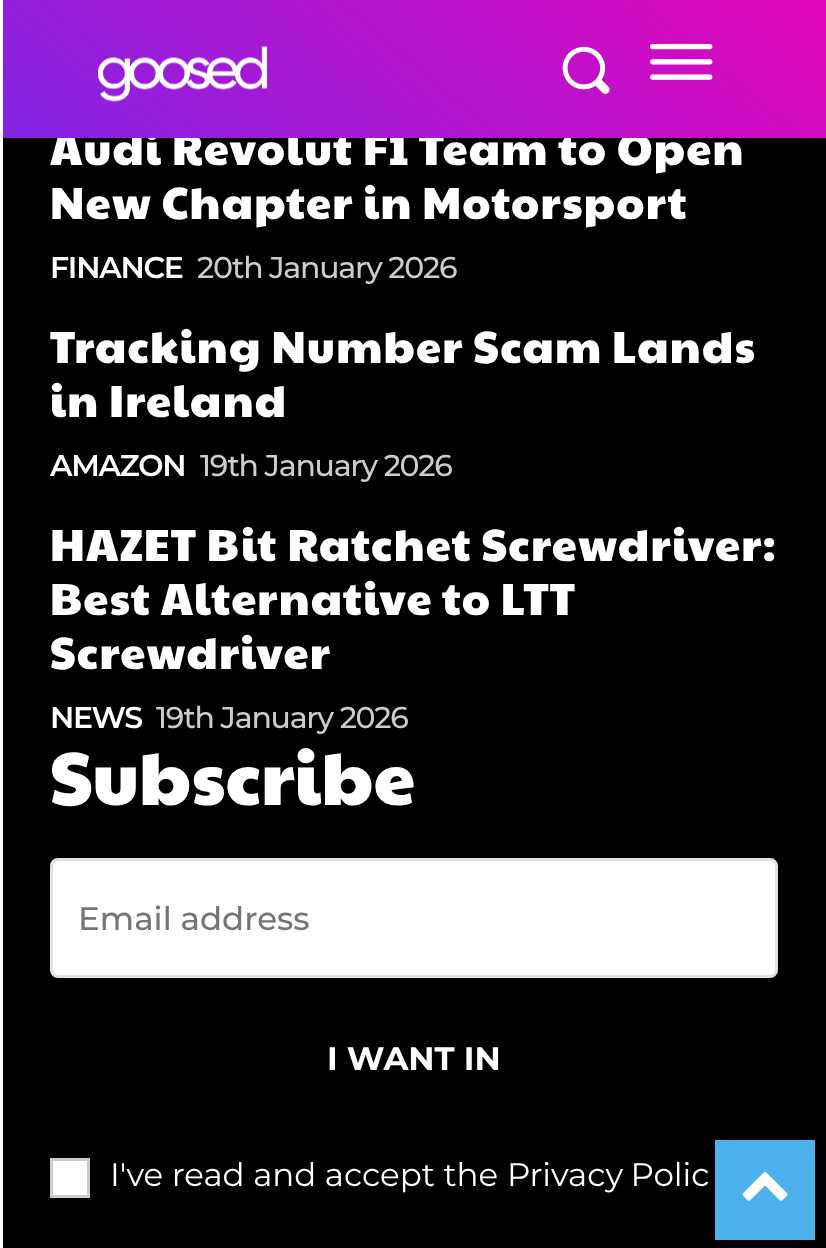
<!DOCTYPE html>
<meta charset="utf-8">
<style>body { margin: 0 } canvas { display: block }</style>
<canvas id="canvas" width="826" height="1248"></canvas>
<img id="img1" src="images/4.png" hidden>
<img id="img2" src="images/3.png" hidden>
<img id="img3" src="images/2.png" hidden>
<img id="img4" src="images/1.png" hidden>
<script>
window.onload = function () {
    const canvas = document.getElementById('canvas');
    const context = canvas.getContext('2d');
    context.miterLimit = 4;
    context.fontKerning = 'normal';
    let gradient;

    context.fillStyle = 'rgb(255, 255, 255)';
    context.fillRect(0, 0, 826, 1248);
    context.fillStyle = 'rgb(0, 0, 0)';
    context.fillRect(3, 138, 823, 1110);
    context.fillStyle = 'rgb(255, 255, 255)';
    context.beginPath();
    context.roundRect(51.5, 859.5, 725, 117, 6.5);
    context.fill();
    context.strokeStyle = 'rgb(225, 225, 225)';
    context.lineWidth = 3;
    context.stroke();
    context.beginPath();
    context.rect(51.5, 1159.5, 37, 37);
    context.fill();
    context.strokeStyle = 'rgb(204, 204, 204)';
    context.stroke();
    context.fillStyle = 'rgb(77, 178, 236)';
    context.fillRect(715, 1140, 100, 100);
    context.drawImage(document.getElementById('img1'), 742, 1172, 46, 29);
    context.letterSpacing = '1.25px';
    context.font = '45px Paytone One';
    context.fillStyle = 'rgb(255, 255, 255)';
    context.fillText('Audi Revolut F1 Team to Open', 50, 165);
    gradient = context.createLinearGradient(620, -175, 210, 313);
    gradient.addColorStop(0, 'rgb(226, 6, 186)');
    gradient.addColorStop(1, 'rgb(130, 36, 227)');
    context.fillStyle = gradient;
    context.fillRect(3, 0, 823, 138);
    context.drawImage(document.getElementById('img2'), 650, 43, 63, 37);
    context.drawImage(document.getElementById('img3'), 562, 46, 48, 48);
    context.drawImage(document.getElementById('img4'), 98, 46, 170, 56);
    context.fillStyle = 'rgb(255, 255, 255)';
    context.fillText('New Chapter in Motorsport', 50, 219);
    context.letterSpacing = '-1.25px';
    context.font = '600 30px Montserrat';
    context.fillText('FINANCE', 50, 278);
    context.font = '500 30px Montserrat';
    context.fillStyle = 'rgb(204, 204, 204)';
    context.fillText('20th January 2026', 197, 278);
    context.letterSpacing = '1.25px';
    context.font = '45px Paytone One';
    context.fillStyle = 'rgb(255, 255, 255)';
    context.fillText('Tracking Number Scam Lands', 50, 363);
    context.fillText('in Ireland', 50, 417);
    context.letterSpacing = '-1.25px';
    context.font = '600 30px Montserrat';
    context.fillText('AMAZON', 50, 476);
    context.font = '500 30px Montserrat';
    context.fillStyle = 'rgb(204, 204, 204)';
    context.fillText('19th January 2026', 200, 476);
    context.letterSpacing = '1.25px';
    context.font = '45px Paytone One';
    context.fillStyle = 'rgb(255, 255, 255)';
    context.fillText('HAZET Bit Ratchet Screwdriver:', 50, 561);
    context.fillText('Best Alternative to LTT', 50, 615);
    context.fillText('Screwdriver', 50, 669);
    context.letterSpacing = '-1.25px';
    context.font = '600 30px Montserrat';
    context.fillText('NEWS', 50, 728);
    context.font = '500 30px Montserrat';
    context.fillStyle = 'rgb(204, 204, 204)';
    context.fillText('19th January 2026', 156, 728);
    context.letterSpacing = '0px';
    context.font = '75px Paytone One';
    context.fillStyle = 'rgb(255, 255, 255)';
    context.fillText('Subscribe', 50, 805);
    context.font = '500 32.5px Montserrat';
    context.fillStyle = 'rgb(117, 117, 117)';
    context.fillText('Email address', 78, 930);
    context.font = 'bold 32.5px Montserrat';
    context.fillStyle = 'rgb(255, 255, 255)';
    context.fillText('I WANT IN', 327, 1070);
    context.font = '32.5px Montserrat';
    context.fillText('I\'ve read and accept the', 110, 1186);
    context.wordSpacing = '-1px';
    context.fillText('Privacy Polic', 507, 1186);
};
</script>
